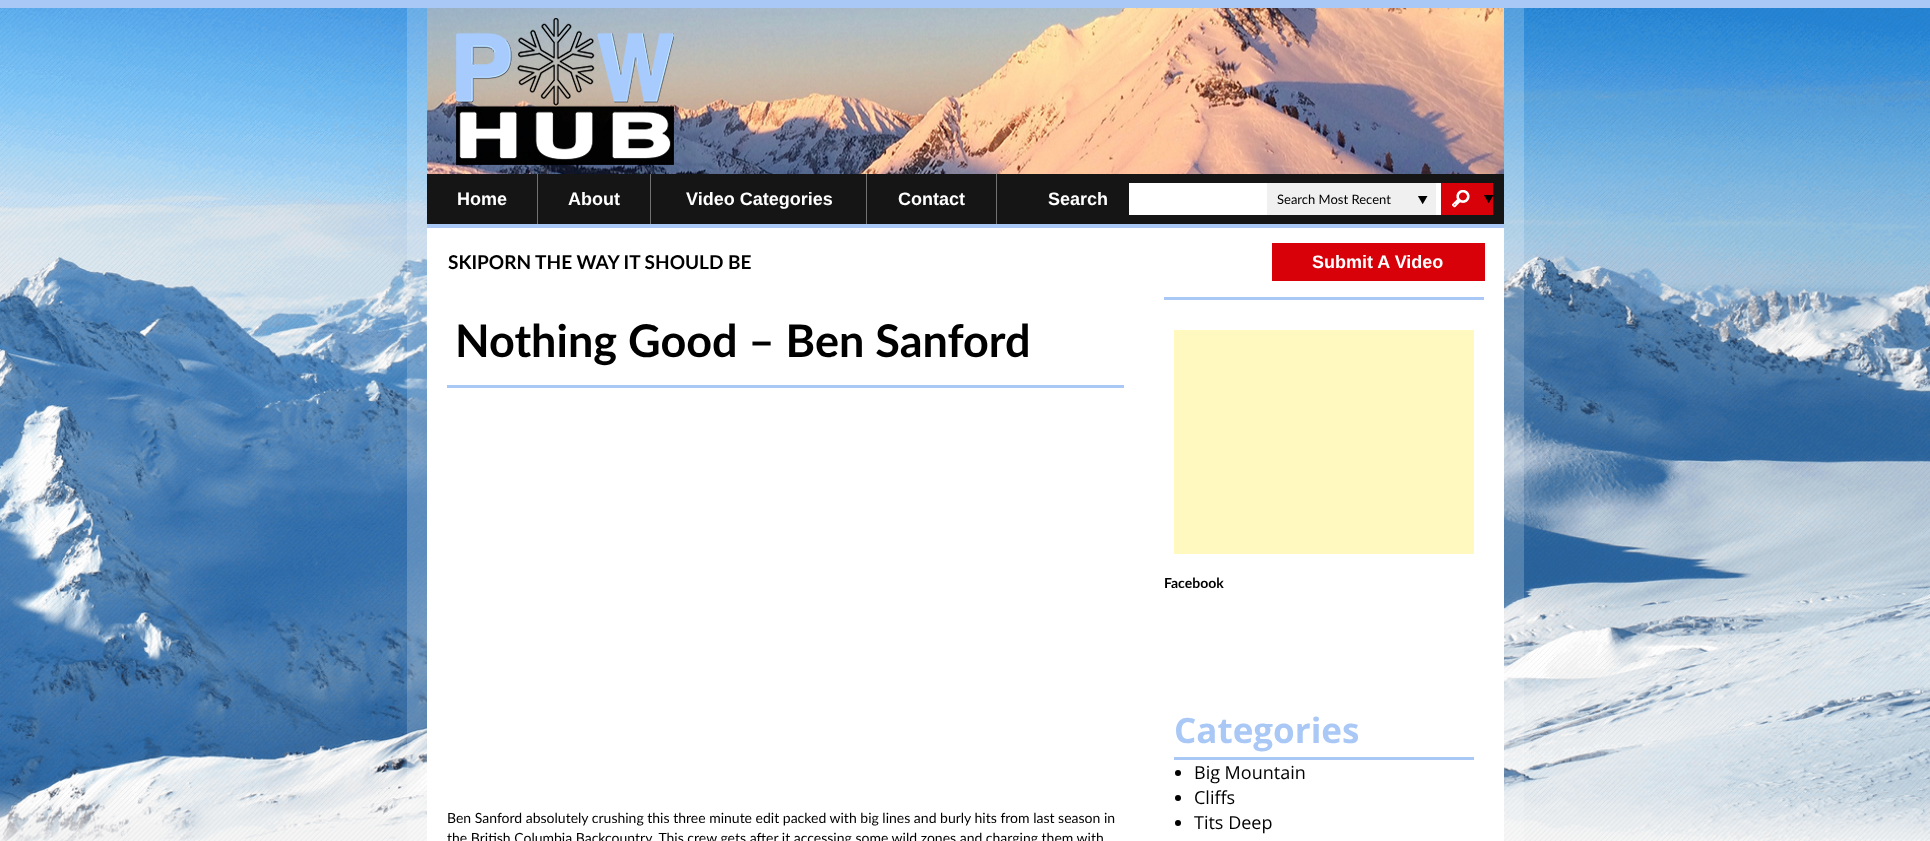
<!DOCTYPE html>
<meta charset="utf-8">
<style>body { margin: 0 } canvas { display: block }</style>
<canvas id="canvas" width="1930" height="841"></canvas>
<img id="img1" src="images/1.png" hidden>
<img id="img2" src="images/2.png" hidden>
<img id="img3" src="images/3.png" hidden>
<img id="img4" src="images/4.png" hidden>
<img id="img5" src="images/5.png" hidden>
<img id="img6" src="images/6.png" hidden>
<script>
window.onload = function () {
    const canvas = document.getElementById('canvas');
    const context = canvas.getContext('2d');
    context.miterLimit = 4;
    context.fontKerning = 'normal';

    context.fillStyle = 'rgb(255, 255, 255)';
    context.fillRect(0, 0, 1930, 841);
    context.drawImage(document.getElementById('img1'), 0, 260, 1930, 581);
    context.drawImage(document.getElementById('img2'), 0, 8, 1930, 833);
    context.fillStyle = 'rgb(169, 200, 246)';
    context.fillRect(0, 0, 1930, 8);
    context.save();
    context.beginPath();
    context.rect(0, 8, 1930, 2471);
    context.clip();
    context.strokeStyle = 'rgba(255, 255, 255, 0.2)';
    context.lineWidth = 20;
    context.strokeRect(417, -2, 1097, 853);
    context.restore();
    context.fillStyle = 'rgb(255, 255, 255)';
    context.fillRect(427, 228, 1077, 613);
    context.fillStyle = 'rgb(169, 200, 246)';
    context.fillRect(427, 224, 1077, 4);
    context.drawImage(document.getElementById('img3'), 427, 8, 1077, 166);
    context.drawImage(document.getElementById('img4'), 456, 18, 218, 147);
    context.fillStyle = 'rgb(21, 21, 21)';
    context.fillRect(427, 174, 1077, 50);
    context.fillStyle = 'rgb(114, 114, 114)';
    context.fillRect(537, 174, 1, 50);
    context.fillRect(650, 174, 1, 50);
    context.fillRect(866, 174, 1, 50);
    context.fillRect(996, 174, 1, 50);
    context.fillStyle = 'rgb(255, 255, 255)';
    context.fillRect(1129, 183, 312, 32);
    context.fillStyle = 'rgb(240, 240, 240)';
    context.fillRect(1267, 183, 169, 32);
    context.drawImage(document.getElementById('img5'), 1418, 196, 10, 8);
    context.fillStyle = 'rgb(216, 0, 9)';
    context.fillRect(1441, 183, 52, 32);
    context.drawImage(document.getElementById('img6'), 1452, 190, 41, 18);
    context.fillRect(1272, 243, 213, 38);
    context.fillStyle = 'rgb(169, 200, 246)';
    context.fillRect(447, 385, 677, 3);
    context.fillRect(1164, 297, 320, 3);
    context.fillStyle = 'rgb(255, 249, 192)';
    context.fillRect(1174, 330, 300, 224);
    context.fillStyle = 'rgb(169, 200, 246)';
    context.fillRect(1174, 757, 300, 3);
    context.fillStyle = 'rgb(0, 0, 0)';
    context.beginPath();
    context.arc(1178, 773, 3, 0, 2 * Math.PI);
    context.fill();
    context.beginPath();
    context.arc(1178, 798, 3, 0, 2 * Math.PI);
    context.fill();
    context.beginPath();
    context.arc(1178, 823, 3, 0, 2 * Math.PI);
    context.fill();
    context.font = 'bold 18px Liberation Sans';
    context.fillStyle = 'rgb(255, 255, 255)';
    context.fillText('Home', 457, 205);
    context.fillText('About', 568, 205);
    context.fillText('Video Categories', 686, 205);
    context.fillText('Contact', 898, 205);
    context.fillText('Search', 1048, 205);
    context.font = '13px Lato';
    context.fillStyle = 'rgb(0, 0, 0)';
    context.fillText('Search Most Recent', 1277, 204);
    context.font = 'bold 19px Lato';
    context.fillText('SKIPORN THE WAY IT SHOULD BE', 448, 269);
    context.font = 'bold 18px Liberation Sans';
    context.fillStyle = 'rgb(255, 255, 255)';
    context.fillText('Submit A Video', 1312, 268);
    context.font = 'bold 45px Lato';
    context.fillStyle = 'rgb(0, 0, 0)';
    context.fillText('Nothing Good – Ben Sanford', 455, 357);
    context.font = '14px Lato';
    context.fillText('Ben Sanford absolutely crushing this three minute edit packed with big lines and burly hits from last season in', 447, 823);
    context.fillText('the British Columbia Backcountry. This crew gets after it accessing some wild zones and charging them with', 447, 843);
    context.font = 'bold 14px Lato';
    context.fillText('Facebook', 1164, 588);
    context.font = 'bold 35px Open Sans';
    context.fillStyle = 'rgb(169, 200, 246)';
    context.fillText('Categories', 1174, 743);
    context.font = '18px Open Sans';
    context.fillStyle = 'rgb(0, 0, 0)';
    context.fillText('Big Mountain', 1194, 779);
    context.fillText('Cliffs', 1194, 804);
    context.fillText('Tits Deep', 1194, 829);
};
</script>
